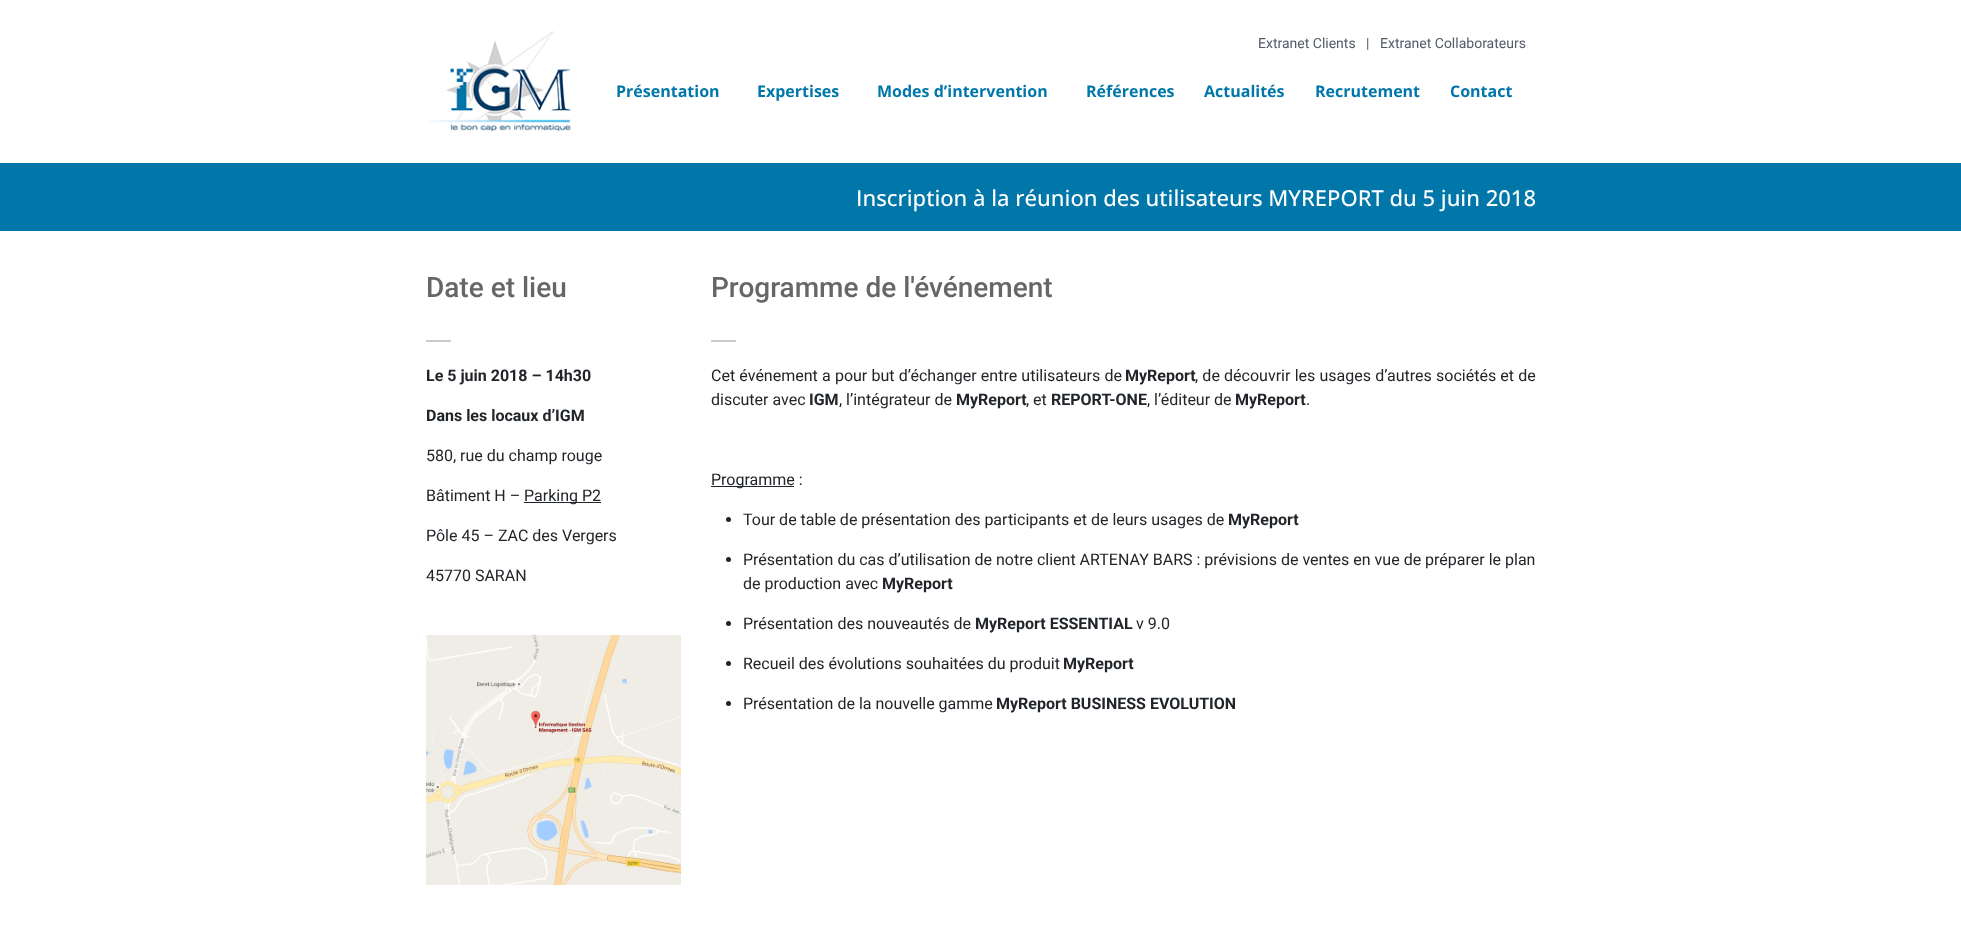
<!DOCTYPE html>
<meta charset="utf-8">
<style>body { margin: 0 } canvas { display: block }</style>
<canvas id="canvas" width="1961" height="943"></canvas>
<img id="img1" src="images/1.png" hidden>
<img id="img2" src="images/2.png" hidden>
<script>
window.onload = function () {
    const canvas = document.getElementById('canvas');
    const context = canvas.getContext('2d');
    context.miterLimit = 4;
    context.fontKerning = 'normal';

    context.fillStyle = 'rgb(255, 255, 255)';
    context.fillRect(0, 0, 1961, 943);
    context.drawImage(document.getElementById('img1'), 428, 31, 143, 101);
    context.fillStyle = 'rgb(1, 119, 169)';
    context.fillRect(0, 163, 1961, 68);
    context.fillStyle = 'rgb(204, 204, 204)';
    context.fillRect(426, 340, 25, 2);
    context.fillStyle = 'rgb(33, 37, 41)';
    context.fillRect(524, 502, 77, 1);
    context.drawImage(document.getElementById('img2'), 426, 635, 255, 250);
    context.fillStyle = 'rgb(204, 204, 204)';
    context.fillRect(711, 340, 25, 2);
    context.fillStyle = 'rgb(33, 37, 41)';
    context.fillRect(711, 486, 83, 1);
    context.beginPath();
    context.arc(728.5, 519.5, 2.5, 0, 2 * Math.PI);
    context.fill();
    context.beginPath();
    context.arc(728.5, 559.5, 2.5, 0, 2 * Math.PI);
    context.fill();
    context.beginPath();
    context.arc(728.5, 623.5, 2.5, 0, 2 * Math.PI);
    context.fill();
    context.beginPath();
    context.arc(728.5, 663.5, 2.5, 0, 2 * Math.PI);
    context.fill();
    context.beginPath();
    context.arc(728.5, 703.5, 2.5, 0, 2 * Math.PI);
    context.fill();
    context.font = '14px Roboto';
    context.fillStyle = 'rgb(83, 91, 103)';
    context.fillText('Extranet Clients', 1258, 48);
    context.fillText('|', 1366, 48);
    context.fillText('Extranet Collaborateurs', 1380, 48);
    context.font = 'bold 16px Open Sans';
    context.fillStyle = 'rgb(1, 119, 169)';
    context.fillText('Présentation', 616, 97);
    context.fillText('Expertises', 757, 97);
    context.fillText('Modes d’intervention', 877, 97);
    context.fillText('Références', 1086, 97);
    context.fillText('Actualités', 1204, 97);
    context.fillText('Recrutement', 1315, 97);
    context.fillText('Contact', 1450, 97);
    context.font = '500 22px Open Sans';
    context.fillStyle = 'rgb(255, 255, 255)';
    context.fillText('Inscription à la réunion des utilisateurs MYREPORT du 5 juin 2018', 856, 206);
    context.font = '500 28px Roboto';
    context.fillStyle = 'rgb(102, 102, 102)';
    context.fillText('Date et lieu', 426, 297);
    context.font = 'bold 16px Roboto';
    context.fillStyle = 'rgb(33, 37, 41)';
    context.fillText('Le 5 juin 2018 – 14h30', 426, 381);
    context.fillText('Dans les locaux d’IGM', 426, 421);
    context.font = '16px Roboto';
    context.fillText('580, rue du champ rouge', 426, 461);
    context.fillText('Bâtiment H –', 426, 501);
    context.fillText('Parking P2', 524, 501);
    context.fillText('Pôle 45 – ZAC des Vergers', 426, 541);
    context.fillText('45770 SARAN', 426, 581);
    context.font = '500 28px Roboto';
    context.fillStyle = 'rgb(102, 102, 102)';
    context.fillText('Programme de l\'événement', 711, 297);
    context.wordSpacing = '0.25px';
    context.font = '16px Roboto';
    context.fillStyle = 'rgb(33, 37, 41)';
    context.fillText('Cet événement a pour but d’échanger entre utilisateurs de', 711, 381);
    context.wordSpacing = '0px';
    context.font = 'bold 16px Roboto';
    context.fillText('MyReport', 1125, 381);
    context.wordSpacing = '0.25px';
    context.font = '16px Roboto';
    context.fillText(', de découvrir les usages d’autres sociétés et de', 1195, 381);
    context.wordSpacing = '0px';
    context.fillText('discuter avec', 711, 405);
    context.font = 'bold 16px Roboto';
    context.fillText('IGM', 809, 405);
    context.font = '16px Roboto';
    context.fillText(', l’intégrateur de', 839, 405);
    context.font = 'bold 16px Roboto';
    context.fillText('MyReport', 956, 405);
    context.font = '16px Roboto';
    context.fillText(', et', 1026, 405);
    context.font = 'bold 16px Roboto';
    context.fillText('REPORT-ONE', 1051, 405);
    context.font = '16px Roboto';
    context.fillText(', l’éditeur de', 1147, 405);
    context.font = 'bold 16px Roboto';
    context.fillText('MyReport', 1235, 405);
    context.font = '16px Roboto';
    context.fillText('.', 1306, 405);
    context.fillText('Programme :', 711, 485);
    context.fillText('Tour de table de présentation des participants et de leurs usages de', 743, 525);
    context.font = 'bold 16px Roboto';
    context.fillText('MyReport', 1228, 525);
    context.font = '16px Roboto';
    context.fillText('Présentation du cas d’utilisation de notre client ARTENAY BARS : prévisions de ventes en vue de préparer le plan', 743, 565);
    context.fillText('de production avec', 743, 589);
    context.font = 'bold 16px Roboto';
    context.fillText('MyReport', 882, 589);
    context.font = '16px Roboto';
    context.fillText('Présentation des nouveautés de', 743, 629);
    context.font = 'bold 16px Roboto';
    context.fillText('MyReport ESSENTIAL', 975, 629);
    context.font = '16px Roboto';
    context.fillText('v 9.0', 1136, 629);
    context.fillText('Recueil des évolutions souhaitées du produit', 743, 669);
    context.font = 'bold 16px Roboto';
    context.fillText('MyReport', 1063, 669);
    context.font = '16px Roboto';
    context.fillText('Présentation de la nouvelle gamme', 743, 709);
    context.font = 'bold 16px Roboto';
    context.fillText('MyReport BUSINESS EVOLUTION', 996, 709);
};
</script>
